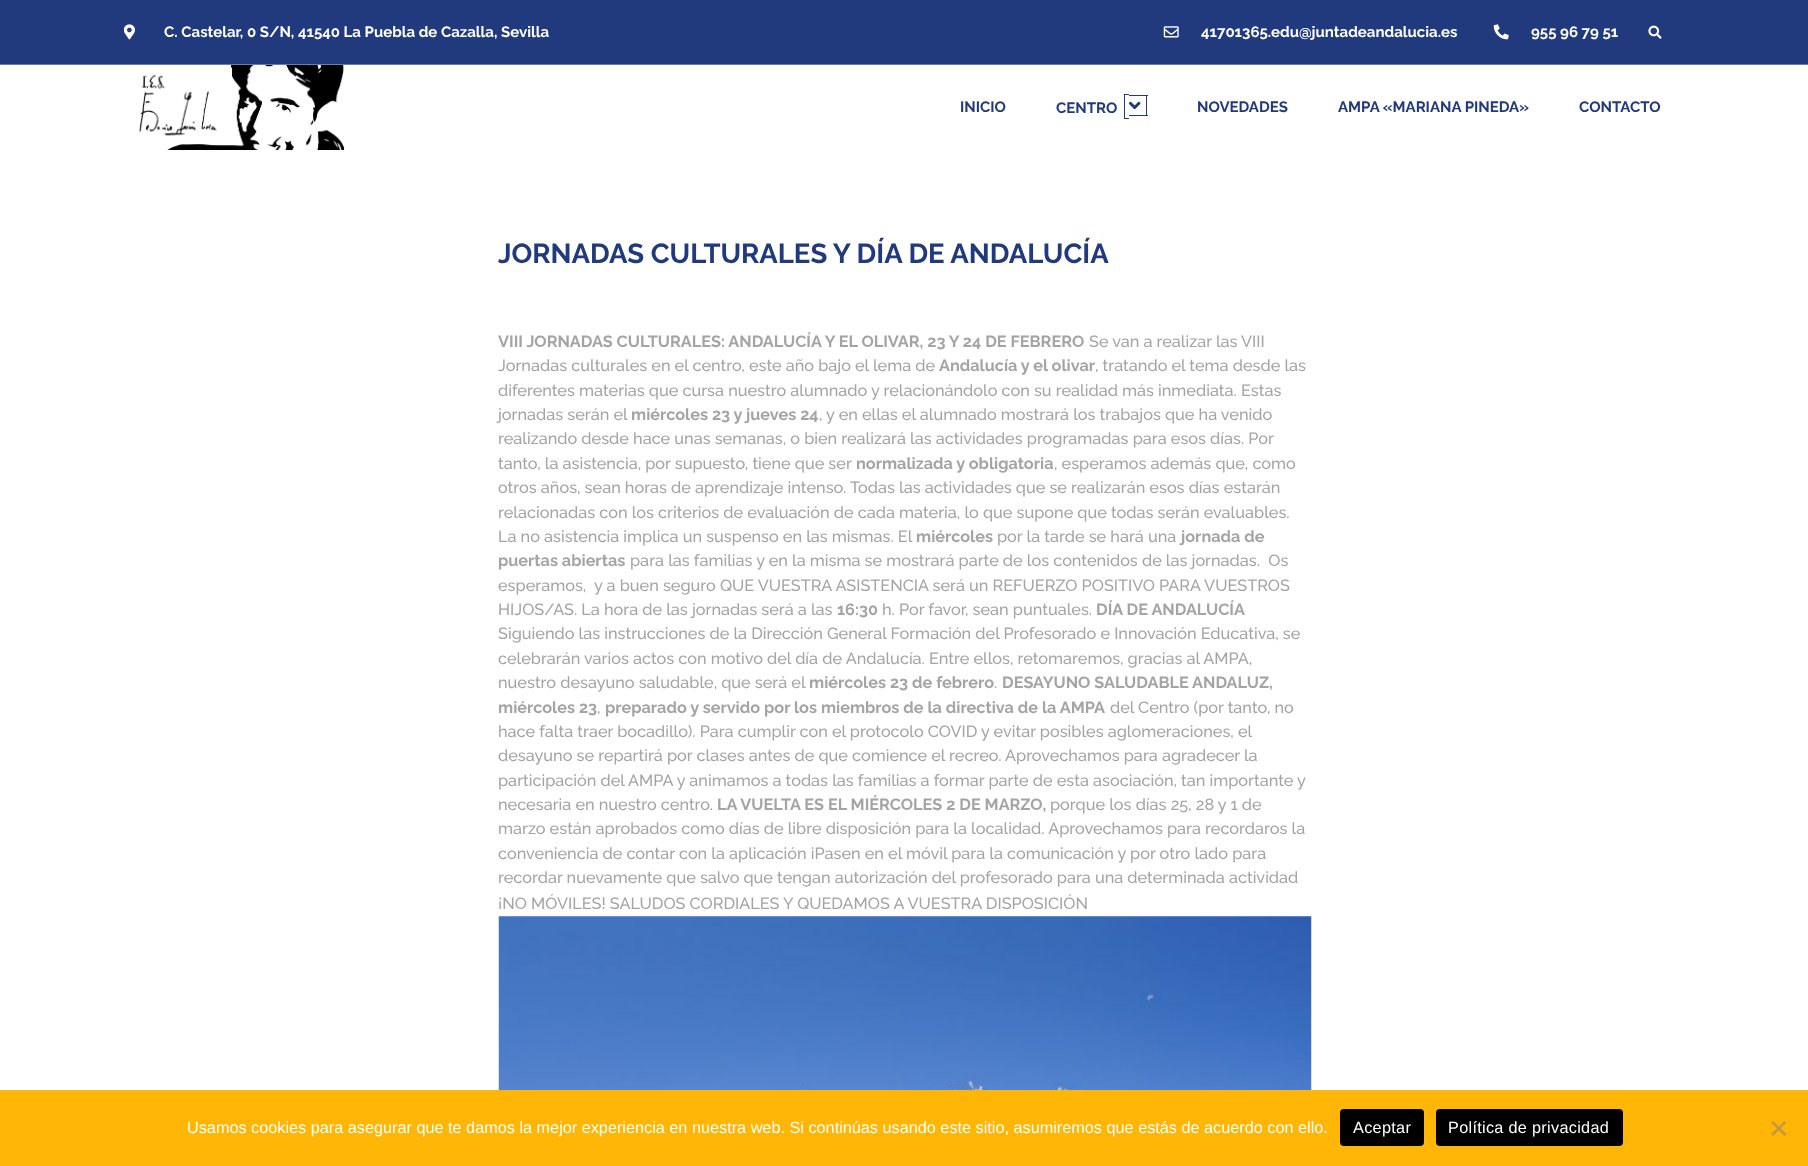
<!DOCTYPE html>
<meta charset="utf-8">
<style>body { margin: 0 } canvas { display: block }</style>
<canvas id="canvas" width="1808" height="1166"></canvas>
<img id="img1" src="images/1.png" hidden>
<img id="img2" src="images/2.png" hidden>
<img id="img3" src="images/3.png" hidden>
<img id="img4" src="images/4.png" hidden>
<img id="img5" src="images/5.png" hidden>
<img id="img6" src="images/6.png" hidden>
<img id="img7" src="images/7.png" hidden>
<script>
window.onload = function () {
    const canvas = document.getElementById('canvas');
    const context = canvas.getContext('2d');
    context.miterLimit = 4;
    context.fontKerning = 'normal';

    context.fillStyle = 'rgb(255, 255, 255)';
    context.fillRect(0, 0, 1808, 1166);
    context.fillStyle = 'rgb(33, 57, 125)';
    context.fillRect(0, 0, 1808, 64);
    context.fillStyle = 'rgb(108, 124, 169)';
    context.fillRect(0, 64, 1808, 1);
    context.drawImage(document.getElementById('img1'), 124, 24, 11, 16);
    context.drawImage(document.getElementById('img2'), 1163, 26, 16, 12);
    context.drawImage(document.getElementById('img3'), 1493, 24, 16, 16);
    context.drawImage(document.getElementById('img4'), 1648, 25, 14, 14);
    context.drawImage(document.getElementById('img5'), 139, 65, 206, 85);
    context.fillStyle = 'rgb(33, 57, 125)';
    context.fillRect(1124, 94, 5, 1);
    context.fillRect(1124, 118, 5, 1);
    context.fillRect(1124, 94, 1, 25);
    context.fillRect(1129, 95, 19, 1);
    context.fillRect(1146, 95, 1, 21);
    context.fillRect(1129, 115, 19, 1);
    context.drawImage(document.getElementById('img6'), 1128, 101, 13, 9);
    context.drawImage(document.getElementById('img7'), 498, 916, 814, 174);
    context.fillStyle = 'rgb(255, 182, 6)';
    context.fillRect(0, 1090, 1808, 76);
    context.fillStyle = 'rgb(0, 0, 0)';
    context.beginPath();
    context.roundRect(1340, 1109, 84, 37, 4);
    context.fill();
    context.beginPath();
    context.roundRect(1436, 1109, 187, 37, 4);
    context.fill();
    context.fillStyle = 'rgb(192, 155, 67)';
    context.beginPath();
    context.moveTo(1784.5, 1121);
    context.lineTo(1786.5, 1122.5);
    context.lineTo(1773, 1136);
    context.lineTo(1771, 1134);
    context.closePath();
    context.fill();
    context.beginPath();
    context.moveTo(1771, 1122.5);
    context.lineTo(1773, 1121);
    context.lineTo(1786.5, 1134);
    context.lineTo(1784.5, 1136);
    context.closePath();
    context.fill();
    context.font = 'bold 15px Raleway';
    context.fillStyle = 'rgb(255, 255, 255)';
    context.fillText('C. Castelar, 0 S/N, 41540 La Puebla de Cazalla, Sevilla', 164, 37);
    context.fillText('41701365.edu@juntadeandalucia.es', 1201, 37);
    context.fillText('955 96 79 51', 1531, 37);
    context.fillStyle = 'rgb(33, 57, 125)';
    context.fillText('INICIO', 960, 112);
    context.fillText('CENTRO', 1056, 113);
    context.fillText('NOVEDADES', 1197, 112);
    context.fillText('AMPA «MARIANA PINEDA»', 1338, 112);
    context.fillText('CONTACTO', 1579, 112);
    context.font = 'bold 27.5px Raleway';
    context.fillText('JORNADAS CULTURALES Y DÍA DE ANDALUCÍA', 498, 263);
    context.font = 'bold 16.25px Raleway';
    context.fillStyle = 'rgb(165, 164, 164)';
    context.fillText('VIII JORNADAS CULTURALES: ANDALUCÍA Y EL OLIVAR, 23 Y 24 DE FEBRERO', 498, 347);
    context.font = '500 16.25px Raleway';
    context.fillText('Se van a realizar las VIII', 1089, 347);
    context.fillText('Jornadas culturales en el centro, este año bajo el lema de', 498, 371);
    context.font = 'bold 16.25px Raleway';
    context.fillText('Andalucía y el olivar', 939, 371);
    context.font = '500 16.25px Raleway';
    context.fillText(', tratando el tema desde las', 1095, 371);
    context.fillText('diferentes materias que cursa nuestro alumnado y relacionándolo con su realidad más inmediata. Estas', 498, 396);
    context.fillText('jornadas serán el', 498, 420);
    context.font = 'bold 16.25px Raleway';
    context.fillText('miércoles 23 y jueves 24', 631, 420);
    context.font = '500 16.25px Raleway';
    context.fillText(', y en ellas el alumnado mostrará los trabajos que ha venido', 819, 420);
    context.fillText('realizando desde hace unas semanas, o bien realizará las actividades programadas para esos días. Por', 498, 444);
    context.fillText('tanto, la asistencia, por supuesto, tiene que ser', 498, 469);
    context.font = 'bold 16.25px Raleway';
    context.fillText('normalizada y obligatoria', 856, 469);
    context.font = '500 16.25px Raleway';
    context.fillText(', esperamos además que, como', 1054, 469);
    context.fillText('otros años, sean horas de aprendizaje intenso. Todas las actividades que se realizarán esos días estarán', 498, 493);
    context.fillText('relacionadas con los criterios de evaluación de cada materia, lo que supone que todas serán evaluables.', 498, 518);
    context.fillText('La no asistencia implica un suspenso en las mismas. El', 498, 542);
    context.font = 'bold 16.25px Raleway';
    context.fillText('miércoles', 916, 542);
    context.font = '500 16.25px Raleway';
    context.fillText('por la tarde se hará una', 997, 542);
    context.font = 'bold 16.25px Raleway';
    context.fillText('jornada de', 1181, 542);
    context.fillText('puertas abiertas', 498, 566);
    context.font = '500 16.25px Raleway';
    context.fillText('para las familias y en la misma se mostrará parte de los contenidos de las jornadas.  Os', 630, 566);
    context.fillText('esperamos,  y a buen seguro QUE VUESTRA ASISTENCIA será un REFUERZO POSITIVO PARA VUESTROS', 498, 591);
    context.fillText('HIJOS/AS. La hora de las jornadas será a las', 498, 615);
    context.font = 'bold 16.25px Raleway';
    context.fillText('16:30', 837, 615);
    context.font = '500 16.25px Raleway';
    context.fillText('h. Por favor, sean puntuales.', 882, 615);
    context.font = 'bold 16.25px Raleway';
    context.fillText('DÍA DE ANDALUCÍA', 1096, 615);
    context.font = '500 16.25px Raleway';
    context.fillText('Siguiendo las instrucciones de la Dirección General Formación del Profesorado e Innovación Educativa, se', 498, 639);
    context.fillText('celebrarán varios actos con motivo del día de Andalucía. Entre ellos, retomaremos, gracias al AMPA,', 498, 664);
    context.fillText('nuestro desayuno saludable, que será el', 498, 688);
    context.font = 'bold 16.25px Raleway';
    context.fillText('miércoles 23 de febrero', 809, 688);
    context.font = '500 16.25px Raleway';
    context.fillText('.', 994, 688);
    context.font = 'bold 16.25px Raleway';
    context.fillText('DESAYUNO SALUDABLE ANDALUZ,', 1002, 688);
    context.fillText('miércoles 23', 498, 713);
    context.font = '500 16.25px Raleway';
    context.fillText(',', 597, 713);
    context.font = 'bold 16.25px Raleway';
    context.fillText('preparado y servido por los miembros de la directiva de la AMPA', 605, 713);
    context.font = '500 16.25px Raleway';
    context.fillText('del Centro (por tanto, no', 1110, 713);
    context.fillText('hace falta traer bocadillo). Para cumplir con el protocolo COVID y evitar posibles aglomeraciones, el', 498, 737);
    context.fillText('desayuno se repartirá por clases antes de que comience el recreo. Aprovechamos para agradecer la', 498, 761);
    context.fillText('participación del AMPA y animamos a todas las familias a formar parte de esta asociación, tan importante y', 498, 786);
    context.fillText('necesaria en nuestro centro.', 498, 810);
    context.font = 'bold 16.25px Raleway';
    context.fillText('LA VUELTA ES EL MIÉRCOLES 2 DE MARZO,', 717, 810);
    context.font = '500 16.25px Raleway';
    context.fillText('porque los días 25, 28 y 1 de', 1050, 810);
    context.fillText('marzo están aprobados como días de libre disposición para la localidad. Aprovechamos para recordaros la', 498, 834);
    context.fillText('conveniencia de contar con la aplicación iPasen en el móvil para la comunicación y por otro lado para', 498, 859);
    context.fillText('recordar nuevamente que salvo que tengan autorización del profesorado para una determinada actividad', 498, 883);
    context.fillText('¡NO MÓVILES! SALUDOS CORDIALES Y QUEDAMOS A VUESTRA DISPOSICIÓN', 498, 909);
    context.font = '16.25px Liberation Sans';
    context.fillStyle = 'rgb(255, 255, 255)';
    context.fillText('Usamos cookies para asegurar que te damos la mejor experiencia en nuestra web. Si continúas usando este sitio, asumiremos que estás de acuerdo con ello.', 187, 1133);
    context.letterSpacing = '0.3px';
    context.fillText('Aceptar', 1353, 1133);
    context.fillText('Política de privacidad', 1448, 1133);
};
</script>
